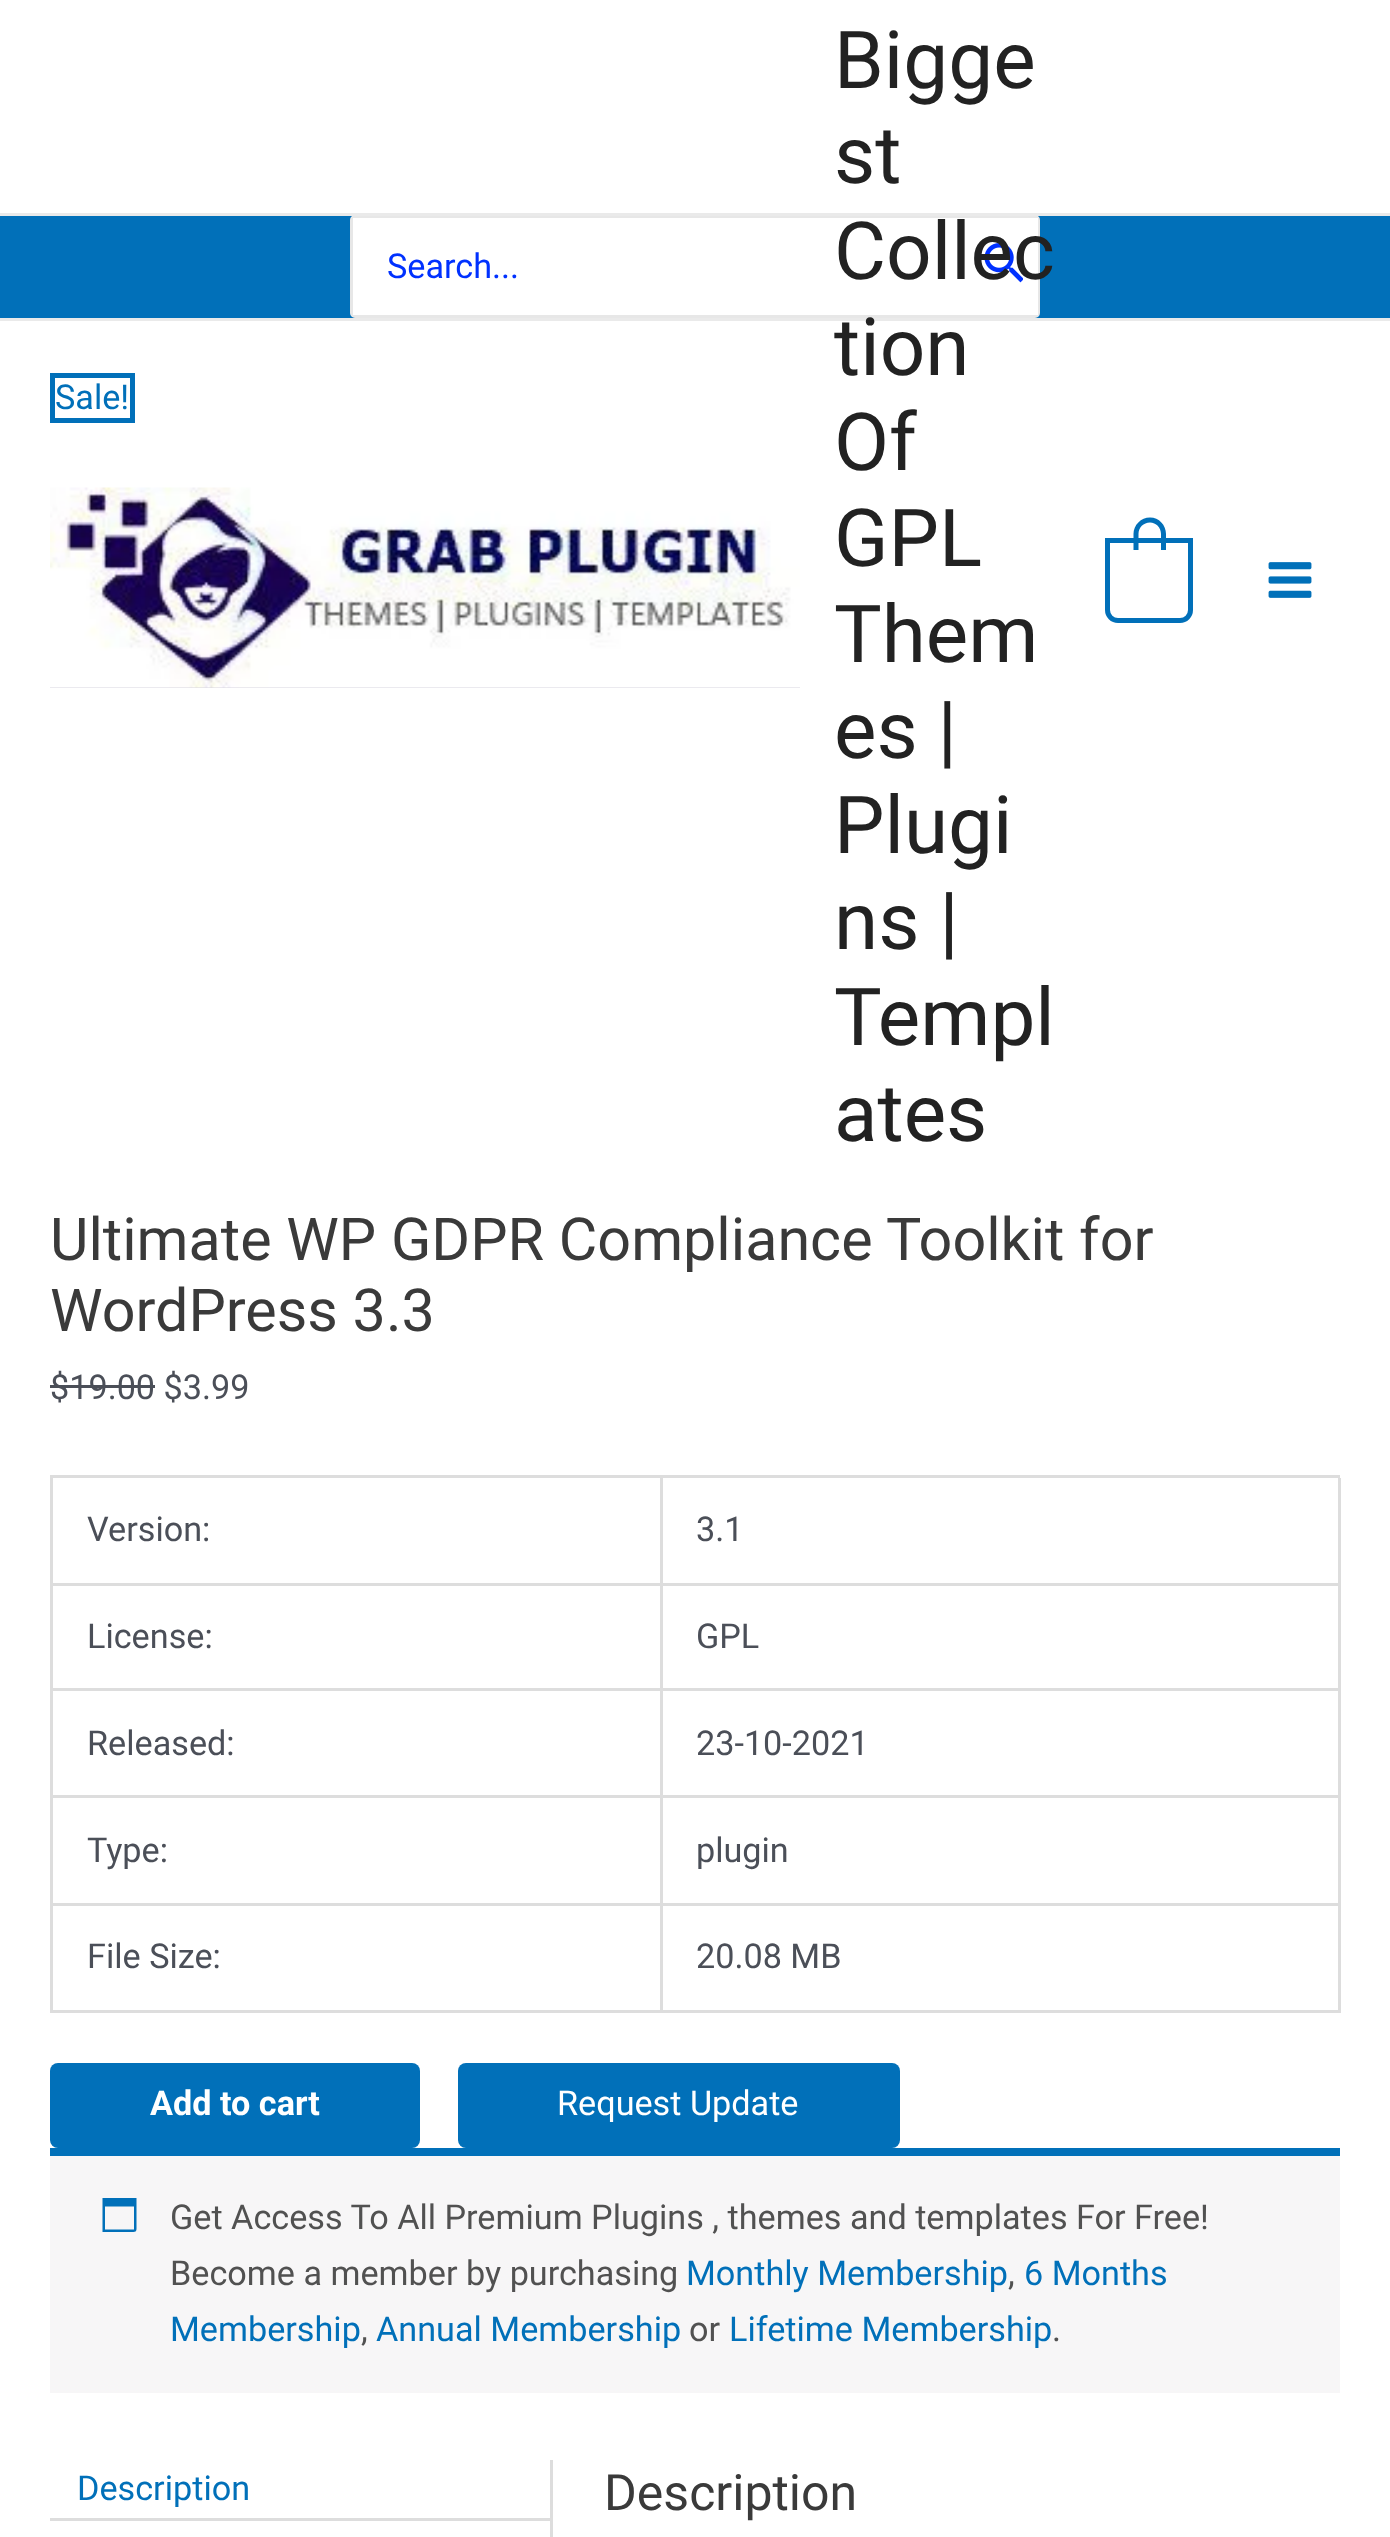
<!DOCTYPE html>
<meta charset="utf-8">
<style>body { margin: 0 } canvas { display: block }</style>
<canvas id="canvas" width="1390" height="2537"></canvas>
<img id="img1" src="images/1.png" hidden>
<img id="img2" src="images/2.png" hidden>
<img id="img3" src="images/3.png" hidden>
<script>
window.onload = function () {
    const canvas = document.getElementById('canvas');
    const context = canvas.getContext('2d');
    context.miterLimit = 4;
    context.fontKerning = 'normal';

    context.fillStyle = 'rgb(255, 255, 255)';
    context.fillRect(0, 0, 1390, 2537);
    context.fillStyle = 'rgb(1, 112, 185)';
    context.fillRect(0, 216, 1390, 102);
    context.fillStyle = 'rgb(234, 234, 234)';
    context.fillRect(0, 318, 1390, 3);
    context.beginPath();
    context.roundRect(351.5, 216.5, 687, 100, 3.5);
    context.strokeStyle = 'rgb(231, 231, 231)';
    context.lineWidth = 3;
    context.stroke();
    context.fillStyle = 'rgb(255, 255, 255)';
    context.fillRect(353, 218, 685, 97);
    context.drawImage(document.getElementById('img1'), 984, 243, 39, 40);
    context.fillStyle = 'rgb(234, 234, 234)';
    context.fillRect(0, 213, 1390, 3);
    context.fillStyle = 'rgb(214, 213, 223)';
    context.fillRect(50, 687, 750, 1);
    context.drawImage(document.getElementById('img2'), 50, 487, 750, 201);
    context.beginPath();
    context.roundRect(1107.5, 540.5, 83, 80, [0, 0, 10.5, 10.5]);
    context.strokeStyle = 'rgb(1, 112, 185)';
    context.lineWidth = 5;
    context.stroke();
    context.fillStyle = 'rgb(1, 112, 185)';
    context.beginPath();
    context.moveTo(1150, 517.5);
    context.bezierCurveTo(1159, 517.5, 1166, 525, 1166, 534);
    context.lineTo(1166, 550);
    context.lineTo(1133.5, 550);
    context.lineTo(1133.5, 534);
    context.bezierCurveTo(1133.5, 525, 1141, 517.5, 1150, 517.5);
    context.closePath();
    context.moveTo(1150, 522.5);
    context.bezierCurveTo(1156, 522.5, 1161, 527.5, 1161, 534);
    context.lineTo(1161, 550);
    context.lineTo(1138.5, 550);
    context.lineTo(1138.5, 534);
    context.bezierCurveTo(1138.5, 527.5, 1143.5, 522.5, 1150, 522.5);
    context.closePath();
    context.fill('evenodd');
    context.drawImage(document.getElementById('img3'), 1268, 562, 44, 36);
    context.strokeRect(52.5, 375.5, 80, 45);
    context.fillStyle = 'rgb(75, 79, 88)';
    context.fillRect(50, 1385, 105, 3);
    context.fillStyle = 'rgb(221, 221, 221)';
    context.fillRect(50, 1475, 1290, 3);
    context.fillRect(50, 1475, 3, 538);
    context.fillRect(660, 1478, 3, 107);
    context.fillRect(53, 1583, 610, 3);
    context.fillRect(1338, 1478, 3, 107);
    context.fillRect(663, 1583, 677, 3);
    context.fillRect(660, 1585, 3, 105);
    context.fillRect(53, 1688, 610, 3);
    context.fillRect(1338, 1585, 3, 105);
    context.fillRect(663, 1688, 677, 3);
    context.fillRect(660, 1690, 3, 215);
    context.fillRect(53, 1795, 610, 3);
    context.fillRect(1338, 1690, 3, 215);
    context.fillRect(663, 1795, 677, 3);
    context.fillRect(53, 1903, 1287, 3);
    context.fillRect(660, 1905, 3, 108);
    context.fillRect(53, 2010, 610, 3);
    context.fillRect(1338, 1905, 3, 108);
    context.fillRect(663, 2010, 677, 3);
    context.fillStyle = 'rgb(1, 112, 185)';
    context.beginPath();
    context.roundRect(50, 2063, 370, 85, 8);
    context.fill();
    context.beginPath();
    context.roundRect(458, 2063, 442, 85, 8);
    context.fill();
    context.fillStyle = 'rgb(247, 246, 247)';
    context.fillRect(50, 2156, 1290, 237);
    context.fillStyle = 'rgb(1, 112, 185)';
    context.fillRect(50, 2148, 1290, 8);
    context.beginPath();
    context.moveTo(134, 2206.5);
    context.lineTo(105, 2206.5);
    context.lineTo(105, 2229.5);
    context.lineTo(134, 2229.5);
    context.closePath();
    context.moveTo(136.5, 2198);
    context.lineTo(136.5, 2224);
    context.bezierCurveTo(136.5, 2232.5, 137.5, 2232, 129, 2232);
    context.lineTo(102.5, 2232);
    context.lineTo(102.5, 2198);
    context.closePath();
    context.fill();
    context.fillStyle = 'rgb(221, 221, 221)';
    context.fillRect(50, 2518, 500, 3);
    context.fillRect(550, 2460, 3, 77);
    context.font = '34.2px Roboto';
    context.fillStyle = 'rgb(0, 49, 255)';
    context.fillText('Search...', 387, 278);
    context.font = '80px Roboto';
    context.fillStyle = 'rgb(34, 34, 34)';
    context.fillText('Bigge', 834, 88);
    context.fillText('st', 834, 183);
    context.fillText('Collec', 834, 279);
    context.fillText('tion', 834, 375);
    context.fillText('Of', 834, 470);
    context.fillText('GPL', 834, 566);
    context.fillText('Them', 834, 662);
    context.fillText('es |', 834, 758);
    context.fillText('Plugi', 834, 853);
    context.fillText('ns |', 834, 949);
    context.fillText('Templ', 834, 1045);
    context.fillText('ates', 834, 1141);
    context.font = '34.2px Roboto';
    context.fillStyle = 'rgb(1, 112, 185)';
    context.fillText('Sale!', 55, 409);
    context.font = '59.25px Roboto';
    context.fillStyle = 'rgb(58, 58, 58)';
    context.fillText('Ultimate WP GDPR Compliance Toolkit for', 50, 1260);
    context.fillText('WordPress 3.3', 50, 1331);
    context.font = '34.2px Roboto';
    context.fillStyle = 'rgb(75, 79, 88)';
    context.fillText('$19.00 $3.99', 50, 1399);
    context.fillText('Version:', 87, 1541);
    context.fillText('3.1', 696, 1541);
    context.fillText('License:', 87, 1648);
    context.fillText('GPL', 696, 1648);
    context.fillText('Released:', 87, 1755);
    context.fillText('23-10-2021', 696, 1755);
    context.fillText('Type:', 87, 1862);
    context.fillText('plugin', 696, 1862);
    context.fillText('File Size:', 87, 1968);
    context.fillText('20.08 MB', 696, 1968);
    context.font = 'bold 34.2px Roboto';
    context.fillStyle = 'rgb(255, 255, 255)';
    context.fillText('Add to cart', 150, 2115);
    context.font = '34.2px Roboto';
    context.fillText('Request Update', 557, 2115);
    context.fillStyle = 'rgb(81, 81, 81)';
    context.fillText('Get Access To All Premium Plugins , themes and templates For Free!', 170, 2229);
    context.fillText('Become a member by purchasing', 170, 2285);
    context.fillStyle = 'rgb(1, 112, 185)';
    context.fillText('Monthly Membership', 686, 2285);
    context.fillStyle = 'rgb(81, 81, 81)';
    context.fillText(',', 1008, 2285);
    context.fillStyle = 'rgb(1, 112, 185)';
    context.fillText('6 Months', 1024, 2285);
    context.fillText('Membership', 170, 2341);
    context.fillStyle = 'rgb(81, 81, 81)';
    context.fillText(',', 361, 2341);
    context.fillStyle = 'rgb(1, 112, 185)';
    context.fillText('Annual Membership', 376, 2341);
    context.fillStyle = 'rgb(81, 81, 81)';
    context.fillText('or', 689, 2341);
    context.fillStyle = 'rgb(1, 112, 185)';
    context.fillText('Lifetime Membership', 729, 2341);
    context.fillStyle = 'rgb(81, 81, 81)';
    context.fillText('.', 1052, 2341);
    context.fillStyle = 'rgb(1, 112, 185)';
    context.fillText('Description', 77, 2500);
    context.font = '50px Roboto';
    context.fillStyle = 'rgb(58, 58, 58)';
    context.fillText('Description', 604, 2510);
};
</script>
